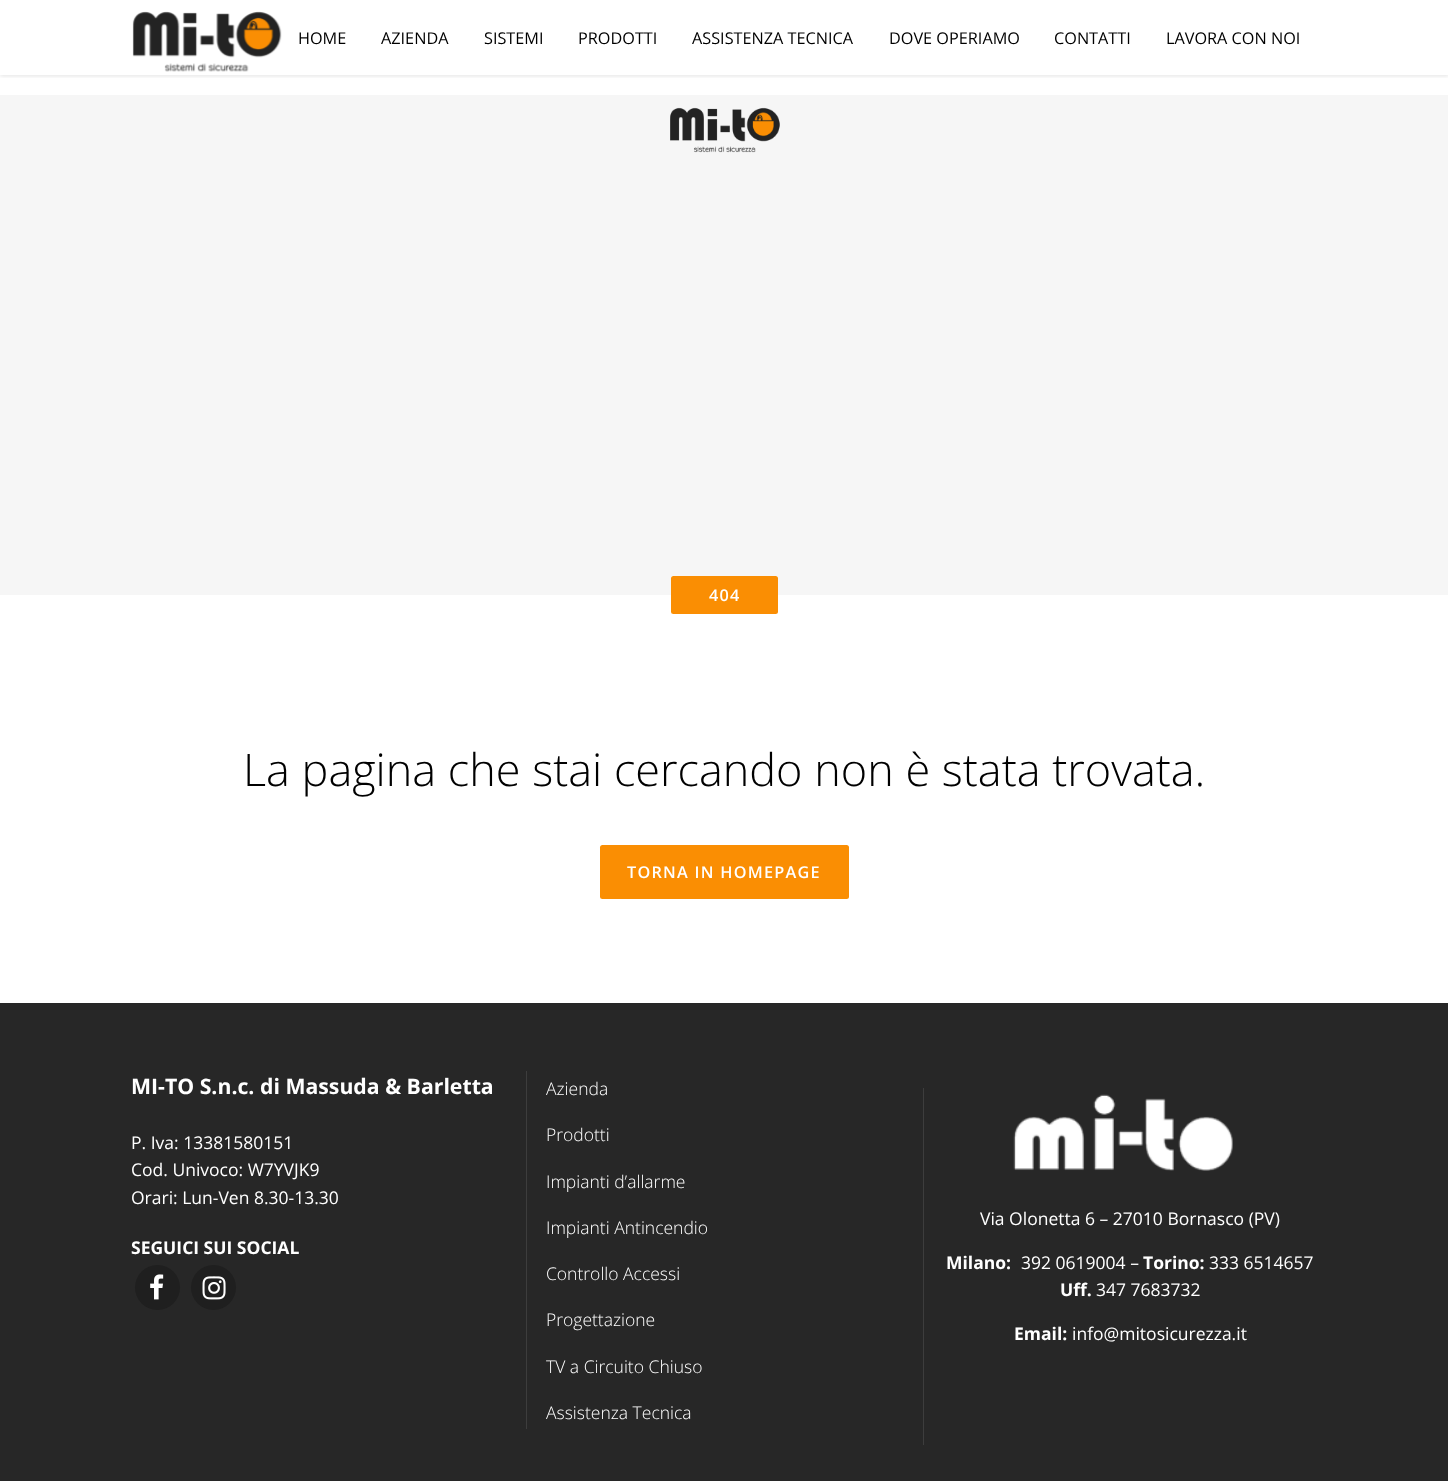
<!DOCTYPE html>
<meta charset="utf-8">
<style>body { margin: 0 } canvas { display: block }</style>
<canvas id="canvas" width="1448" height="1481"></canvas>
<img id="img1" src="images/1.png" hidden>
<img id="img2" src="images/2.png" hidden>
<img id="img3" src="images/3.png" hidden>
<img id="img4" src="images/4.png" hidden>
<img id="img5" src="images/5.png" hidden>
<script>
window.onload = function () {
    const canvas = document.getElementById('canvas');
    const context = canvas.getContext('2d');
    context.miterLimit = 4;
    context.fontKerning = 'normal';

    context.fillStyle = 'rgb(255, 255, 255)';
    context.fillRect(0, 0, 1448, 1481);
    context.save();
    context.beginPath();
    context.rect(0, 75, 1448, 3);
    context.clip();
    context.fillStyle = 'rgba(0, 0, 0, 0.11)';
    context.filter = 'blur(2px)';
    context.beginPath();
    context.rect(0, 1, 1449, 75);
    context.fill();
    context.filter = 'none';
    context.restore();
    context.drawImage(document.getElementById('img1'), 132, 11, 150, 61);
    context.fillStyle = 'rgb(246, 246, 246)';
    context.fillRect(0, 95, 1448, 500);
    context.drawImage(document.getElementById('img2'), 670, 107, 110, 46);
    context.fillStyle = 'rgb(250, 142, 3)';
    context.beginPath();
    context.roundRect(671, 576, 107, 38, 2.5);
    context.fill();
    context.beginPath();
    context.roundRect(600, 845, 249, 54, 2.5);
    context.fill();
    context.fillStyle = 'rgb(39, 39, 39)';
    context.fillRect(0, 1003, 1448, 478);
    context.fillStyle = 'rgb(31, 31, 31)';
    context.beginPath();
    context.arc(157.5, 1287.5, 22.5, 0, 2 * Math.PI);
    context.fill();
    context.drawImage(document.getElementById('img3'), 150, 1274, 14, 26);
    context.beginPath();
    context.arc(213.5, 1287.5, 22.5, 0, 2 * Math.PI);
    context.fill();
    context.drawImage(document.getElementById('img4'), 202, 1276, 24, 24);
    context.fillStyle = 'rgb(61, 61, 61)';
    context.fillRect(526, 1071, 1, 358);
    context.fillRect(923, 1088, 1, 357);
    context.drawImage(document.getElementById('img5'), 1013, 1094, 220, 77);
    context.font = '16.25px Open Sans';
    context.fillStyle = 'rgb(0, 0, 0)';
    context.fillText('HOME', 298, 44);
    context.fillText('AZIENDA', 381, 44);
    context.fillText('SISTEMI', 484, 44);
    context.fillText('PRODOTTI', 578, 44);
    context.fillText('ASSISTENZA TECNICA', 692, 44);
    context.fillText('DOVE OPERIAMO', 889, 44);
    context.fillText('CONTATTI', 1054, 44);
    context.fillText('LAVORA CON NOI', 1166, 44);
    context.letterSpacing = '1.25px';
    context.font = '600 16.25px Open Sans';
    context.fillStyle = 'rgb(255, 255, 255)';
    context.fillText('404', 709, 601);
    context.letterSpacing = '0px';
    context.font = '300 45px Open Sans';
    context.fillStyle = 'rgb(0, 0, 0)';
    context.fillText('La pagina che stai cercando non è stata trovata.', 243, 786);
    context.letterSpacing = '1.25px';
    context.font = '600 16.25px Open Sans';
    context.fillStyle = 'rgb(255, 255, 255)';
    context.fillText('TORNA IN HOMEPAGE', 627, 878);
    context.letterSpacing = '0px';
    context.font = 'bold 21.25px Open Sans';
    context.fillText('MI-TO S.n.c. di Massuda & Barletta', 131, 1094);
    context.font = '17.5px Open Sans';
    context.fillText('P. Iva: 13381580151', 131, 1149);
    context.fillText('Cod. Univoco: W7YVJK9', 131, 1176);
    context.fillText('Orari: Lun-Ven 8.30-13.30', 131, 1204);
    context.font = 'bold 17.5px Open Sans';
    context.fillText('SEGUICI SUI SOCIAL', 131, 1254);
    context.font = '300 17.5px Open Sans';
    context.fillText('Azienda', 546, 1095);
    context.fillText('Prodotti', 546, 1141);
    context.fillText('Impianti d’allarme', 546, 1188);
    context.fillText('Impianti Antincendio', 546, 1234);
    context.fillText('Controllo Accessi', 546, 1280);
    context.fillText('Progettazione', 546, 1326);
    context.fillText('TV a Circuito Chiuso', 546, 1373);
    context.fillText('Assistenza Tecnica', 546, 1419);
    context.font = '17.5px Open Sans';
    context.fillText('Via Olonetta 6 – 27010 Bornasco (PV)', 980, 1225);
    context.font = 'bold 17.5px Open Sans';
    context.fillText('Milano:', 946, 1269);
    context.font = '17.5px Open Sans';
    context.fillText('392 0619004 –', 1021, 1269);
    context.font = 'bold 17.5px Open Sans';
    context.fillText('Torino:', 1143, 1269);
    context.font = '17.5px Open Sans';
    context.fillText('333 6514657', 1209, 1269);
    context.font = 'bold 17.5px Open Sans';
    context.fillText('Uff.', 1060, 1296);
    context.font = '17.5px Open Sans';
    context.fillText('347 7683732', 1096, 1296);
    context.font = 'bold 17.5px Open Sans';
    context.fillText('Email:', 1014, 1340);
    context.font = '17.5px Open Sans';
    context.fillText('info@mitosicurezza.it', 1072, 1340);
};
</script>
